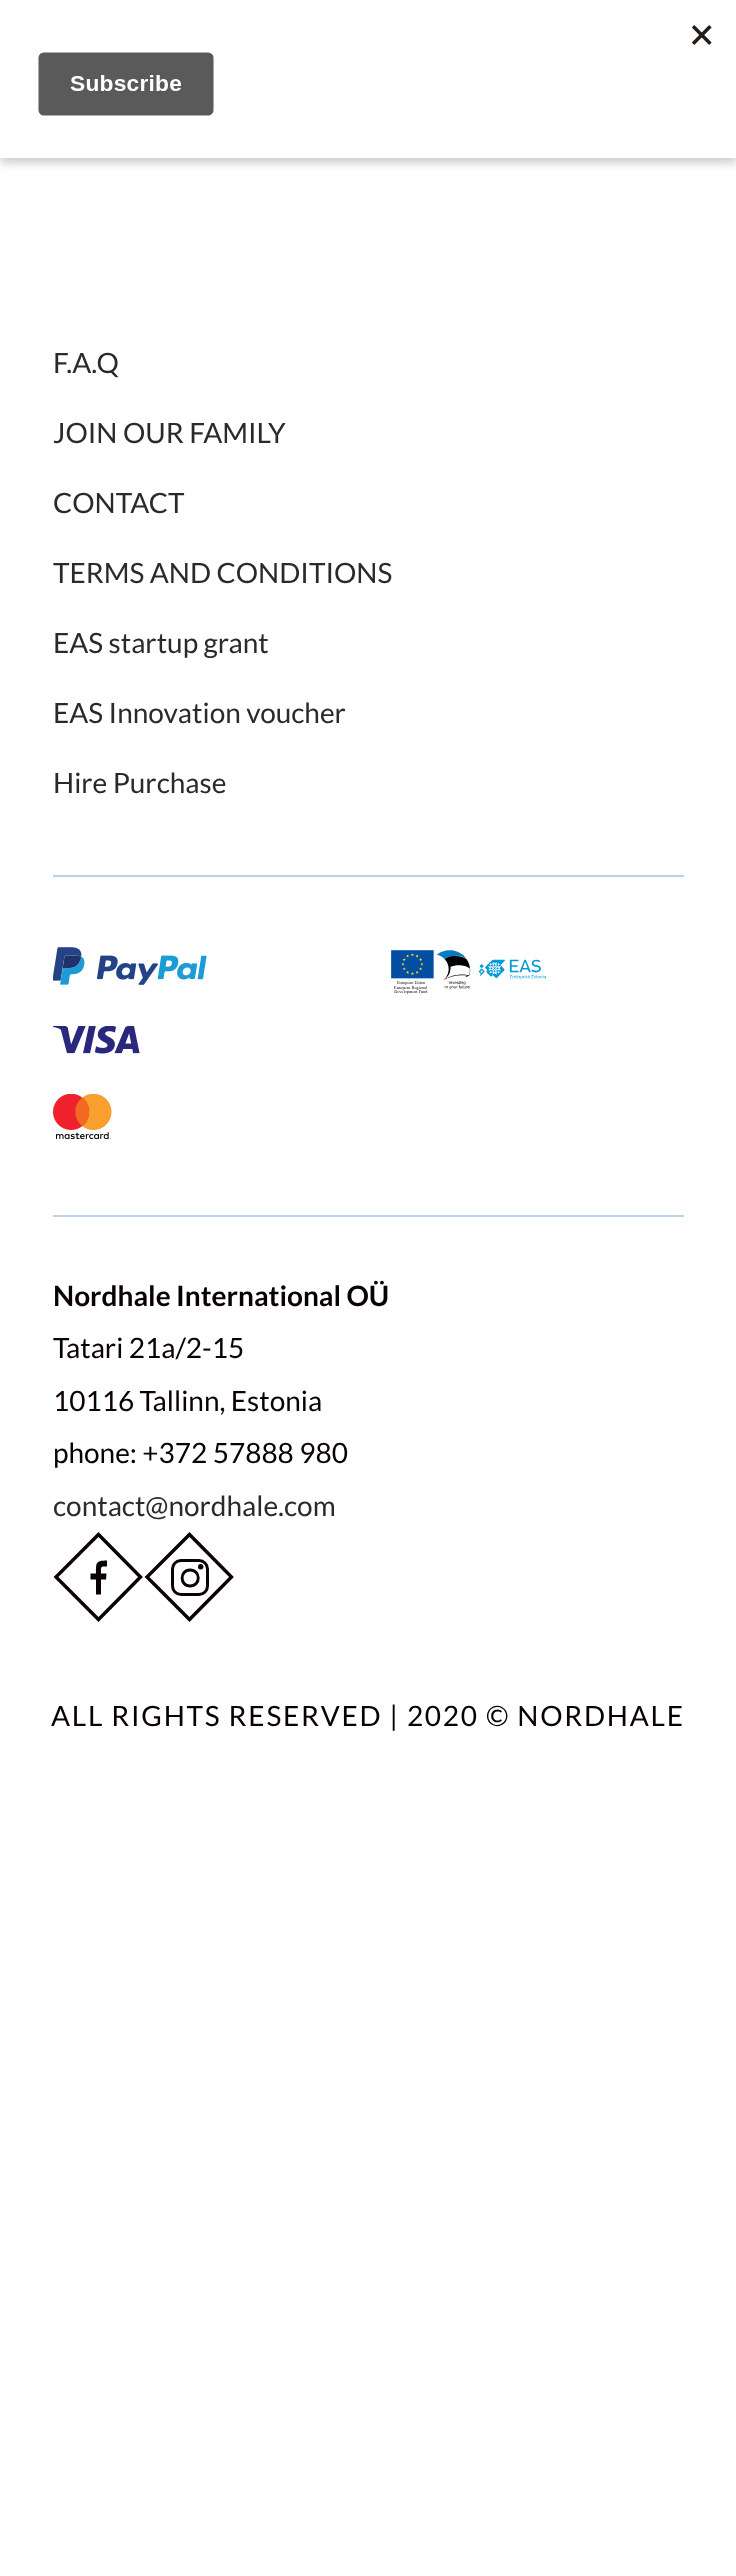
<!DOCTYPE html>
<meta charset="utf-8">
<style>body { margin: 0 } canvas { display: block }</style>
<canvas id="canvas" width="736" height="2576"></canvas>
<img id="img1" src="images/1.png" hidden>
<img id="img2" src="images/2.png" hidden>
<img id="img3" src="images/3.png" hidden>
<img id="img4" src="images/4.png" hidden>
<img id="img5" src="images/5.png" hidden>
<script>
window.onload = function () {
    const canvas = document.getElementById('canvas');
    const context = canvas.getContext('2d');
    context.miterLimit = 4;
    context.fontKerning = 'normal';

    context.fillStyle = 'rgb(255, 255, 255)';
    context.fillRect(0, 0, 736, 2576);
    context.fillStyle = 'rgba(0, 0, 0, 0.2)';
    context.filter = 'blur(5px)';
    context.beginPath();
    context.rect(0, 5, 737, 158);
    context.fill();
    context.filter = 'none';
    context.fillStyle = 'rgb(255, 255, 255)';
    context.fillRect(0, 0, 736, 158);
    context.drawImage(document.getElementById('img1'), 38, 25, 674, 91);
    context.fillStyle = 'rgb(188, 209, 235)';
    context.fillRect(53, 875, 631, 2);
    context.drawImage(document.getElementById('img2'), 53, 947, 154, 38);
    context.drawImage(document.getElementById('img3'), 53, 1026, 87, 28);
    context.drawImage(document.getElementById('img4'), 53, 1094, 59, 45);
    context.drawImage(document.getElementById('img5'), 391, 950, 156, 44);
    context.fillRect(53, 1215, 631, 2);
    context.beginPath();
    context.moveTo(98.5, 1534.5);
    context.lineTo(140.5, 1577);
    context.lineTo(98.5, 1619.5);
    context.lineTo(56, 1577);
    context.closePath();
    context.strokeStyle = 'rgb(9, 1, 2)';
    context.lineWidth = 3.4;
    context.stroke();
    context.fillStyle = 'rgb(9, 1, 2)';
    context.beginPath();
    context.moveTo(96, 1594.5);
    context.lineTo(96, 1579.5);
    context.lineTo(90.5, 1579.5);
    context.lineTo(90.5, 1573.5);
    context.lineTo(96, 1573.5);
    context.bezierCurveTo(96, 1563, 95.5, 1560.5, 107, 1560.5);
    context.lineTo(107, 1566.5);
    context.bezierCurveTo(100, 1566.5, 101, 1566.5, 101, 1573.5);
    context.lineTo(106.5, 1573.5);
    context.lineTo(106, 1579.5);
    context.lineTo(101, 1579.5);
    context.lineTo(101, 1594.5);
    context.closePath();
    context.fill('evenodd');
    context.beginPath();
    context.moveTo(189.5, 1534.5);
    context.lineTo(231.5, 1577);
    context.lineTo(189.5, 1619.5);
    context.lineTo(147, 1577);
    context.closePath();
    context.stroke();
    context.beginPath();
    context.roundRect(172.5, 1560.5, 35, 34, 8.5);
    context.lineWidth = 3;
    context.stroke();
    context.beginPath();
    context.moveTo(190, 1586);
    context.bezierCurveTo(201, 1586, 201, 1570, 190, 1570);
    context.bezierCurveTo(179.5, 1570, 179.5, 1586, 190, 1586);
    context.closePath();
    context.moveTo(190, 1586);
    context.bezierCurveTo(179.5, 1586, 179.5, 1570, 190, 1570);
    context.bezierCurveTo(201, 1570, 201, 1586, 190, 1586);
    context.closePath();
    context.lineWidth = 2.9;
    context.stroke();
    context.beginPath();
    context.arc(200.7, 1566.8, 2.7, 0, 2 * Math.PI);
    context.fill();
    context.font = '28px Lato';
    context.fillStyle = 'rgb(42, 42, 42)';
    context.fillText('F.A.Q', 53, 373);
    context.fillText('JOIN OUR FAMILY', 53, 443);
    context.fillText('CONTACT', 53, 513);
    context.fillText('TERMS AND CONDITIONS', 53, 583);
    context.fillText('EAS startup grant', 53, 653);
    context.fillText('EAS Innovation voucher', 53, 723);
    context.fillText('Hire Purchase', 53, 793);
    context.font = 'bold 28px Lato';
    context.fillStyle = 'rgb(9, 1, 2)';
    context.fillText('Nordhale International OÜ', 53, 1306);
    context.font = '28px Lato';
    context.fillText('Tatari 21a/2-15', 53, 1358);
    context.fillText('10116 Tallinn, Estonia', 53, 1411);
    context.fillText('phone: +372 57888 980', 53, 1463);
    context.fillStyle = 'rgb(42, 42, 42)';
    context.fillText('contact@nordhale.com', 53, 1516);
    context.letterSpacing = '1.75px';
    context.fillStyle = 'rgb(9, 1, 2)';
    context.fillText('ALL RIGHTS RESERVED | 2020 © NORDHALE', 51, 1726);
};
</script>
